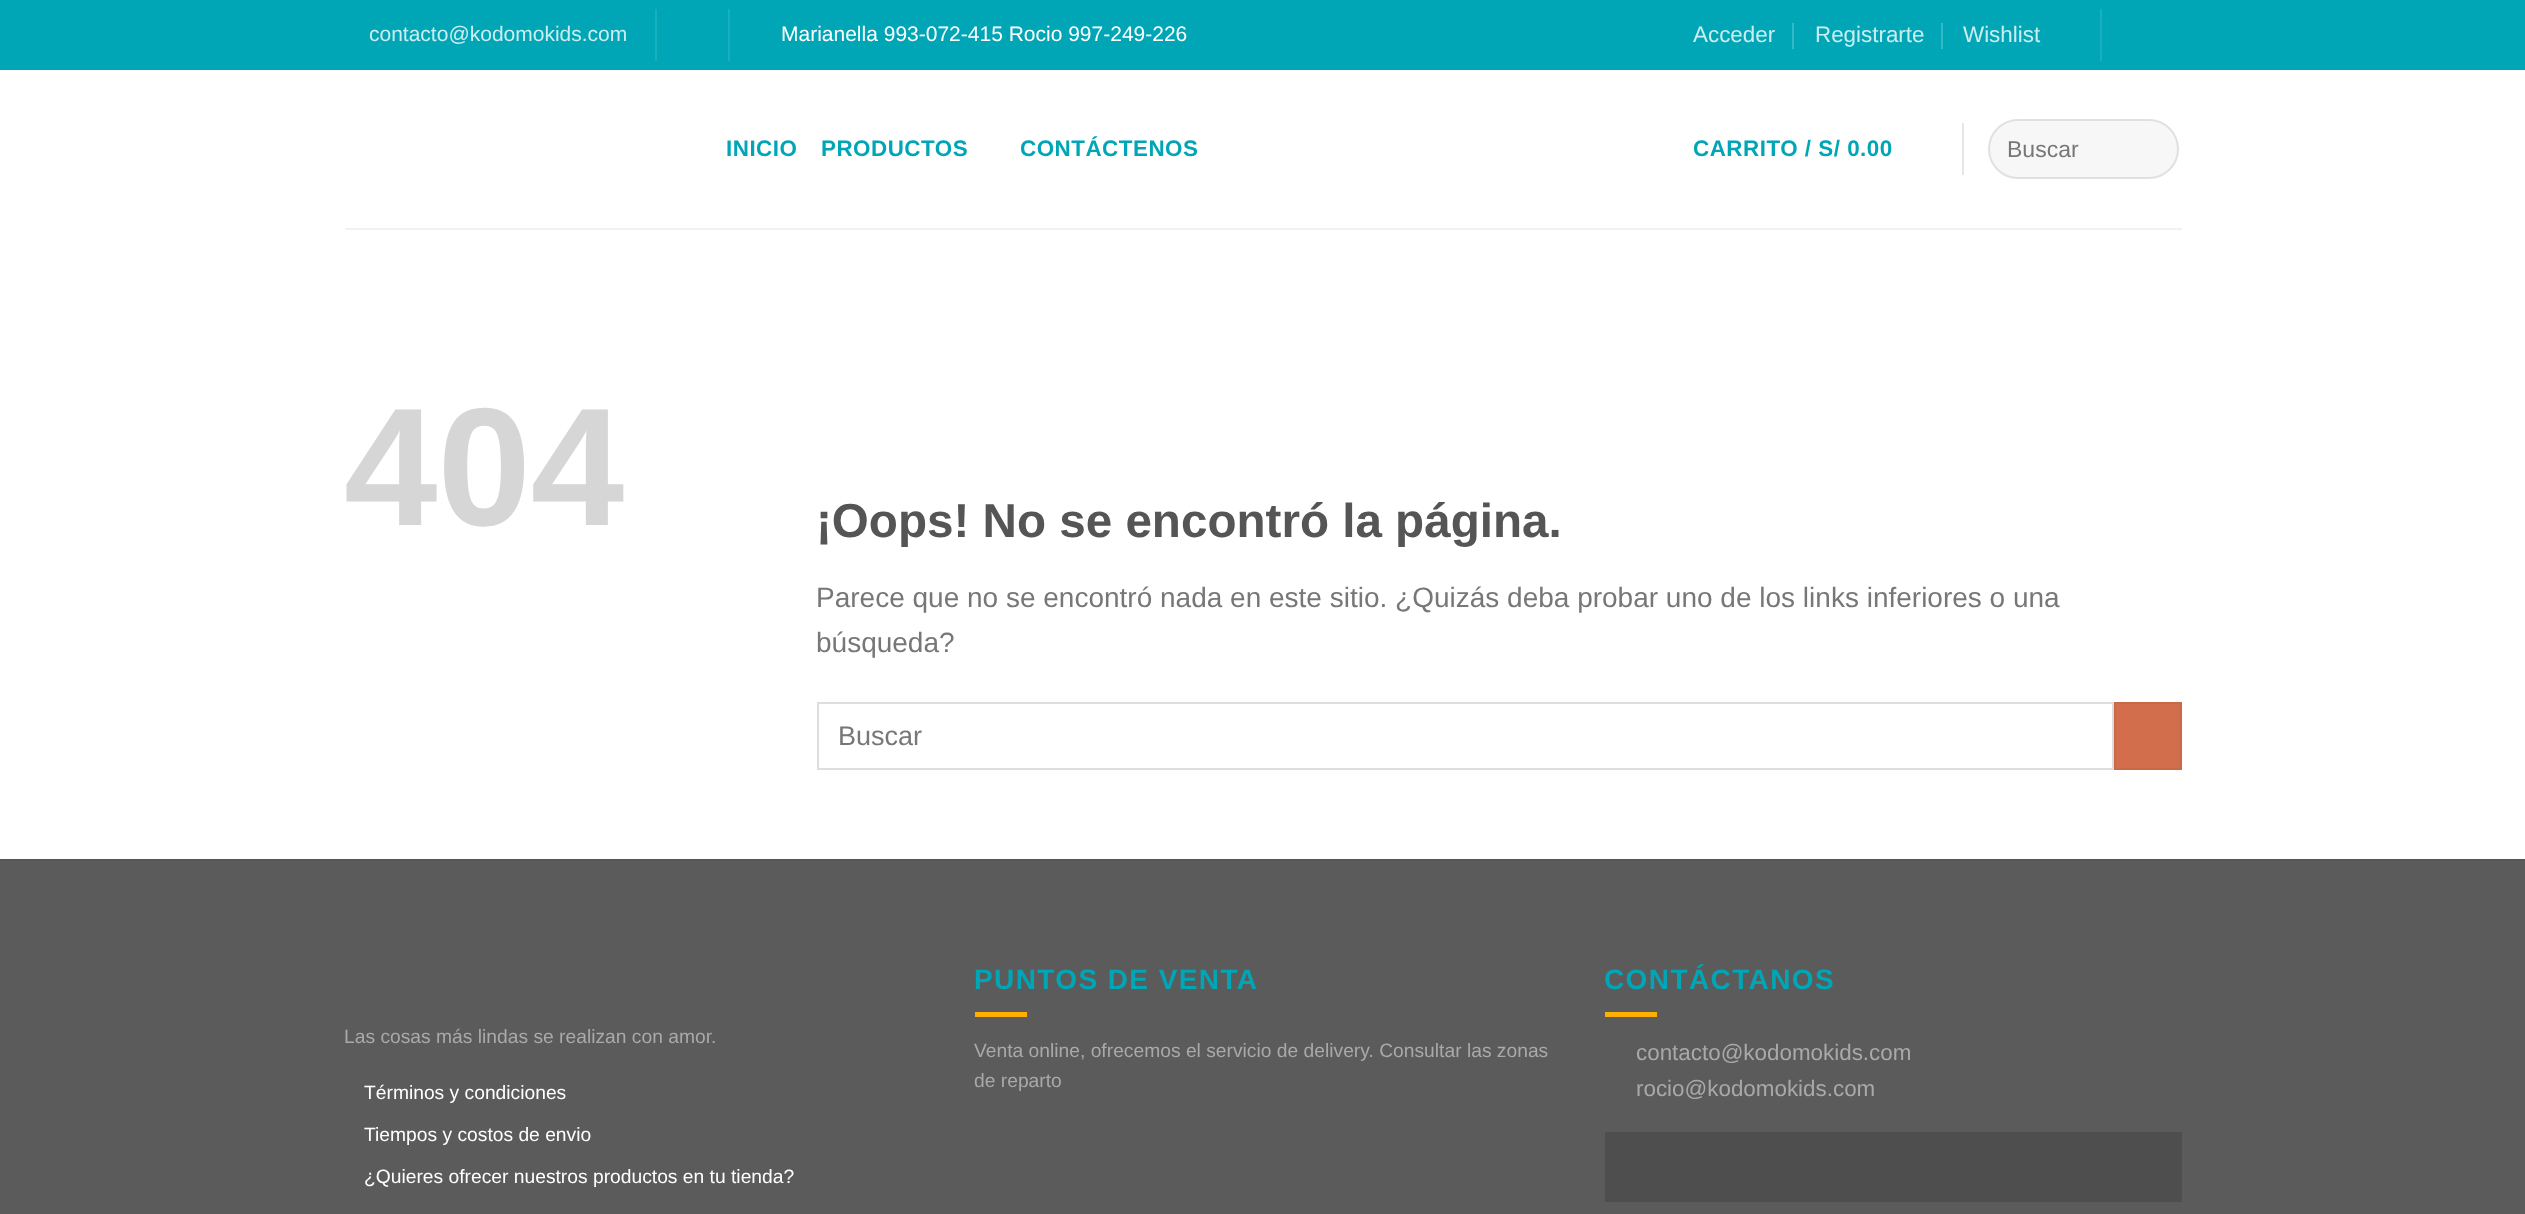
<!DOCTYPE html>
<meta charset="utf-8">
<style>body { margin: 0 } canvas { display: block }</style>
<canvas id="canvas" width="2525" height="1214"></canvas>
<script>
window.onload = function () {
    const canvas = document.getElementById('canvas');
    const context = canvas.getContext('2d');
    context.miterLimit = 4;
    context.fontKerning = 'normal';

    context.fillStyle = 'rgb(255, 255, 255)';
    context.fillRect(0, 0, 2525, 1214);
    context.fillStyle = 'rgb(0, 166, 182)';
    context.fillRect(0, 0, 2525, 70);
    context.fillStyle = 'rgb(26, 175, 189)';
    context.fillRect(655, 9, 2, 52);
    context.fillRect(728, 9, 2, 52);
    context.fillStyle = 'rgb(51, 184, 197)';
    context.fillRect(1792, 23, 2, 26);
    context.fillRect(1941, 23, 2, 26);
    context.fillStyle = 'rgb(26, 175, 189)';
    context.fillRect(2100, 9, 2, 52);
    context.fillStyle = 'rgb(230, 230, 230)';
    context.fillRect(1962, 123, 2, 52);
    context.fillStyle = 'rgb(247, 247, 247)';
    context.beginPath();
    context.roundRect(1988, 119, 191, 60, 30);
    context.fill();
    context.beginPath();
    context.roundRect(1989, 120, 189, 58, 29);
    context.strokeStyle = 'rgba(0, 0, 0, 0.09)';
    context.lineWidth = 2;
    context.stroke();
    context.fillStyle = 'rgb(241, 241, 241)';
    context.fillRect(345, 228, 1837, 2);
    context.strokeStyle = 'rgb(221, 221, 221)';
    context.strokeRect(818, 703, 1295, 66);
    context.fillStyle = 'rgb(210, 110, 75)';
    context.beginPath();
    context.rect(2115, 703, 66, 66);
    context.fill();
    context.strokeStyle = 'rgb(200, 105, 71)';
    context.stroke();
    context.fillStyle = 'rgb(91, 91, 91)';
    context.fillRect(0, 861, 2525, 353);
    context.fillStyle = 'rgb(86, 86, 86)';
    context.fillRect(0, 859, 2525, 2);
    context.fillStyle = 'rgb(255, 175, 0)';
    context.fillRect(975, 1012, 52, 5);
    context.fillRect(1605, 1012, 52, 5);
    context.fillStyle = 'rgb(78, 78, 78)';
    context.fillRect(1605, 1132, 577, 70);
    context.font = '21px Liberation Sans';
    context.fillStyle = 'rgb(204, 237, 240)';
    context.fillText('contacto@kodomokids.com', 369, 41);
    context.fillStyle = 'rgb(255, 255, 255)';
    context.fillText('Marianella 993-072-415 Rocio 997-249-226', 781, 41);
    context.font = '22.4px Liberation Sans';
    context.fillStyle = 'rgb(204, 237, 240)';
    context.fillText('Acceder', 1693, 42);
    context.fillText('Registrarte', 1815, 42);
    context.fillText('Wishlist', 1963, 42);
    context.letterSpacing = '0.5px';
    context.font = 'bold 22.4px Liberation Sans';
    context.fillStyle = 'rgb(0, 166, 182)';
    context.fillText('INICIO', 726, 156);
    context.fillText('PRODUCTOS', 821, 156);
    context.fillText('CONTÁCTENOS', 1020, 156);
    context.fillText('CARRITO / S/ 0.00', 1693, 156);
    context.letterSpacing = '0px';
    context.font = '23px Liberation Sans';
    context.fillStyle = 'rgb(119, 119, 119)';
    context.fillText('Buscar', 2007, 157);
    context.font = 'bold 168px Liberation Sans';
    context.fillStyle = 'rgb(214, 214, 214)';
    context.fillText('404', 344, 525);
    context.font = 'bold 47.6px Liberation Sans';
    context.fillStyle = 'rgb(85, 85, 85)';
    context.fillText('¡Oops! No se encontró la página.', 816, 537);
    context.font = '28px Liberation Sans';
    context.fillStyle = 'rgb(119, 119, 119)';
    context.fillText('Parece que no se encontró nada en este sitio. ¿Quizás deba probar uno de los links inferiores o una', 816, 607);
    context.fillText('búsqueda?', 816, 652);
    context.font = '27px Liberation Sans';
    context.fillText('Buscar', 838, 745);
    context.font = '19.25px Liberation Sans';
    context.fillStyle = 'rgb(169, 169, 169)';
    context.fillText('Las cosas más lindas se realizan con amor.', 344, 1043);
    context.fillStyle = 'rgb(255, 255, 255)';
    context.fillText('Términos y condiciones', 364, 1099);
    context.fillText('Tiempos y costos de envio', 364, 1141);
    context.fillText('¿Quieres ofrecer nuestros productos en tu tienda?', 364, 1183);
    context.letterSpacing = '1.4px';
    context.font = 'bold 28px Liberation Sans';
    context.fillStyle = 'rgb(0, 166, 182)';
    context.fillText('PUNTOS DE VENTA', 974, 989);
    context.letterSpacing = '0px';
    context.font = '19.25px Liberation Sans';
    context.fillStyle = 'rgb(169, 169, 169)';
    context.fillText('Venta online, ofrecemos el servicio de delivery. Consultar las zonas', 974, 1057);
    context.fillText('de reparto', 974, 1087);
    context.letterSpacing = '1.4px';
    context.font = 'bold 28px Liberation Sans';
    context.fillStyle = 'rgb(0, 166, 182)';
    context.fillText('CONTÁCTANOS', 1604, 989);
    context.letterSpacing = '0px';
    context.font = '22.4px Liberation Sans';
    context.fillStyle = 'rgb(169, 169, 169)';
    context.fillText('contacto@kodomokids.com', 1636, 1060);
    context.fillText('rocio@kodomokids.com', 1636, 1096);
};
</script>
